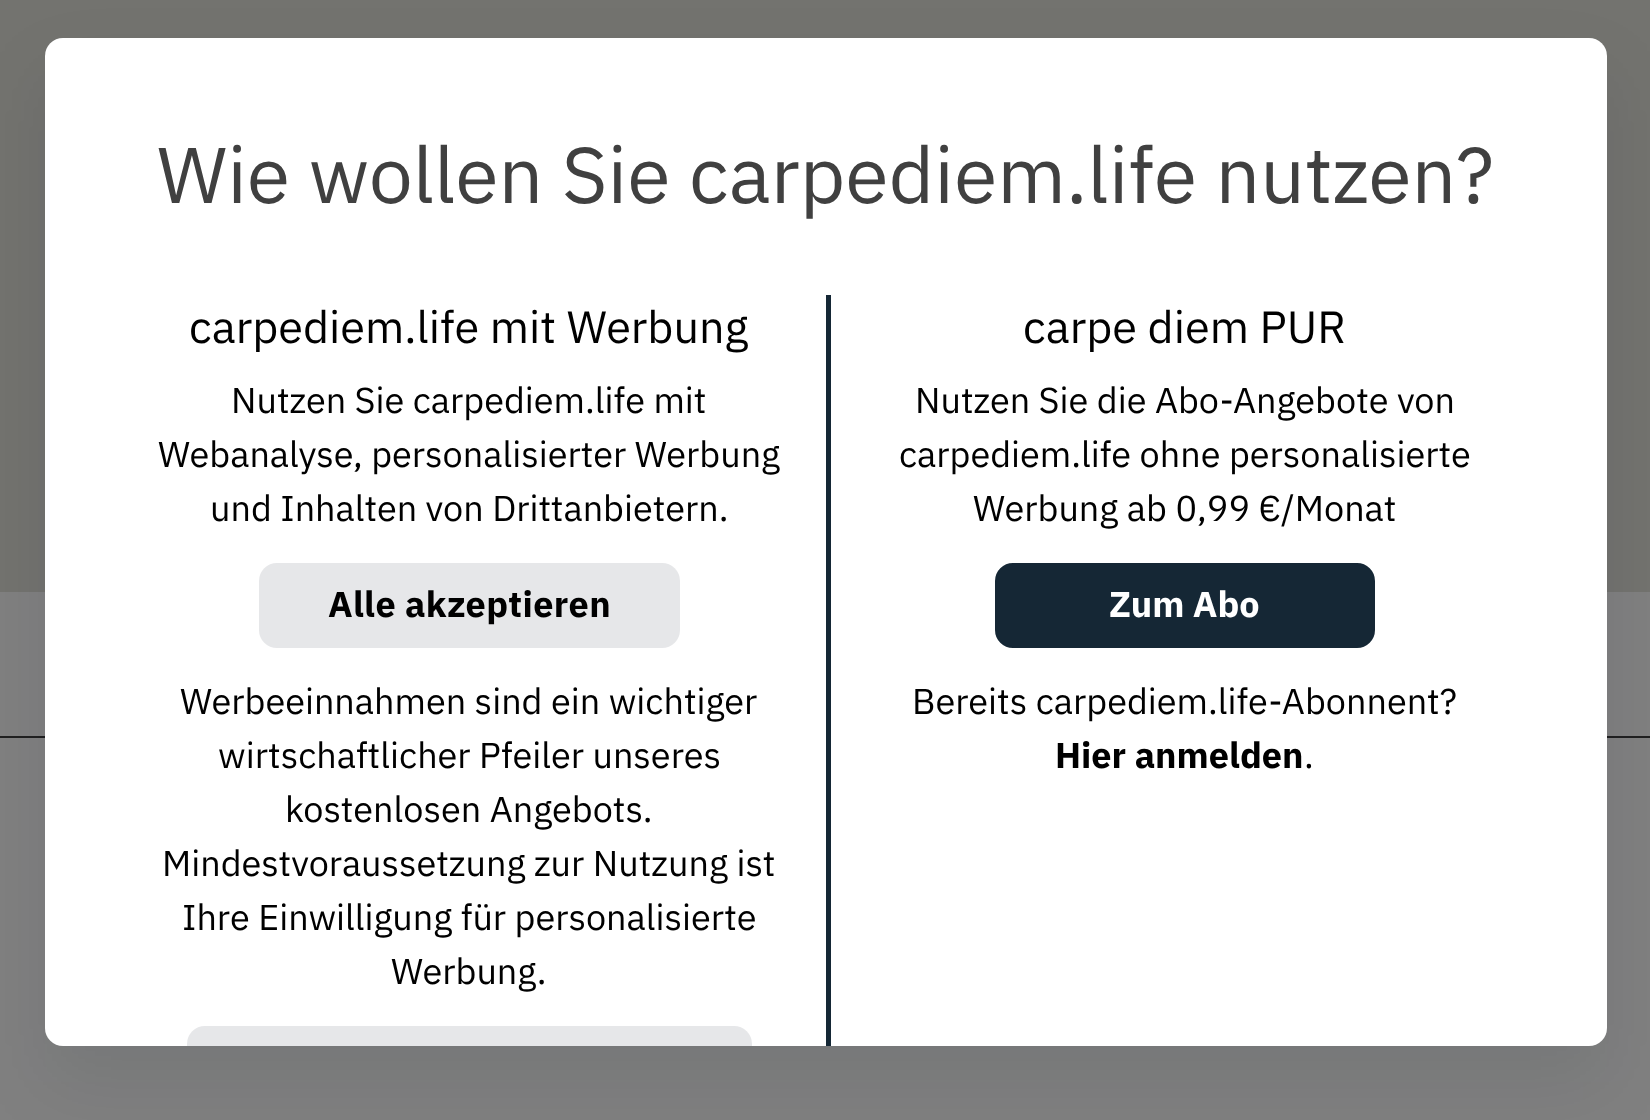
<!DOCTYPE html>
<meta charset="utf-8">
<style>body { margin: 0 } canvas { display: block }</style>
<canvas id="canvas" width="1650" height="1120"></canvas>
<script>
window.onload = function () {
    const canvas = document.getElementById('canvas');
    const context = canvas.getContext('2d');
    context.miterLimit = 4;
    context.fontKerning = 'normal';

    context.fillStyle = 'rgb(128, 128, 128)';
    context.fillRect(0, 0, 1650, 1120);
    context.fillStyle = 'rgb(115, 115, 111)';
    context.fillRect(0, 0, 1650, 592);
    context.fillStyle = 'rgb(32, 32, 32)';
    context.fillRect(0, 736, 1650, 2);
    context.fillStyle = 'rgba(0, 15, 30, 0.08)';
    context.filter = 'blur(36px)';
    context.beginPath();
    context.roundRect(45, 74, 1562, 1008, 18);
    context.fill();
    context.filter = 'none';
    context.fillStyle = 'rgb(255, 255, 255)';
    context.beginPath();
    context.roundRect(45, 38, 1562, 1008, 18);
    context.fill();
    context.fillStyle = 'rgb(230, 231, 233)';
    context.beginPath();
    context.roundRect(259, 563, 421, 85, 18);
    context.fill();
    context.beginPath();
    context.roundRect(187, 1026, 565, 20, [18, 18, 0, 0]);
    context.fill();
    context.fillStyle = 'rgb(21, 39, 53)';
    context.fillRect(826, 295, 5, 751);
    context.beginPath();
    context.roundRect(996, 564, 378, 83, 17);
    context.fill();
    context.strokeStyle = 'rgb(21, 39, 53)';
    context.lineWidth = 2;
    context.stroke();
    context.font = '78.75px IBM Plex Sans';
    context.fillStyle = 'rgb(64, 64, 64)';
    context.fillText('Wie wollen Sie carpediem.life nutzen?', 157, 203);
    context.font = '45px IBM Plex Sans';
    context.fillStyle = 'rgb(0, 0, 0)';
    context.fillText('carpediem.life mit Werbung', 189, 343);
    context.font = '36px IBM Plex Sans';
    context.fillText('Nutzen Sie carpediem.life mit', 231, 413);
    context.fillText('Webanalyse, personalisierter Werbung', 158, 467);
    context.fillText('und Inhalten von Drittanbietern.', 210, 521);
    context.letterSpacing = '0.4px';
    context.font = 'bold 36px IBM Plex Sans';
    context.fillText('Alle akzeptieren', 328, 617);
    context.letterSpacing = '0px';
    context.font = '36px IBM Plex Sans';
    context.fillText('Werbeeinnahmen sind ein wichtiger', 180, 714);
    context.fillText('wirtschaftlicher Pfeiler unseres', 218, 768);
    context.fillText('kostenlosen Angebots.', 285, 822);
    context.fillText('Mindestvoraussetzung zur Nutzung ist', 162, 876);
    context.fillText('Ihre Einwilligung für personalisierte', 182, 930);
    context.fillText('Werbung.', 391, 984);
    context.font = '45px IBM Plex Sans';
    context.fillText('carpe diem PUR', 1023, 343);
    context.font = '36px IBM Plex Sans';
    context.fillText('Nutzen Sie die Abo-Angebote von', 915, 413);
    context.fillText('carpediem.life ohne personalisierte', 899, 467);
    context.fillText('Werbung ab 0,99 €/Monat', 973, 521);
    context.font = 'bold 36px IBM Plex Sans';
    context.fillStyle = 'rgb(255, 255, 255)';
    context.fillText('Zum Abo', 1109, 617);
    context.font = '36px IBM Plex Sans';
    context.fillStyle = 'rgb(0, 0, 0)';
    context.fillText('Bereits carpediem.life-Abonnent?', 912, 714);
    context.font = 'bold 36px IBM Plex Sans';
    context.fillText('Hier anmelden', 1055, 768);
    context.font = '36px IBM Plex Sans';
    context.fillText('.', 1304, 768);
};
</script>
